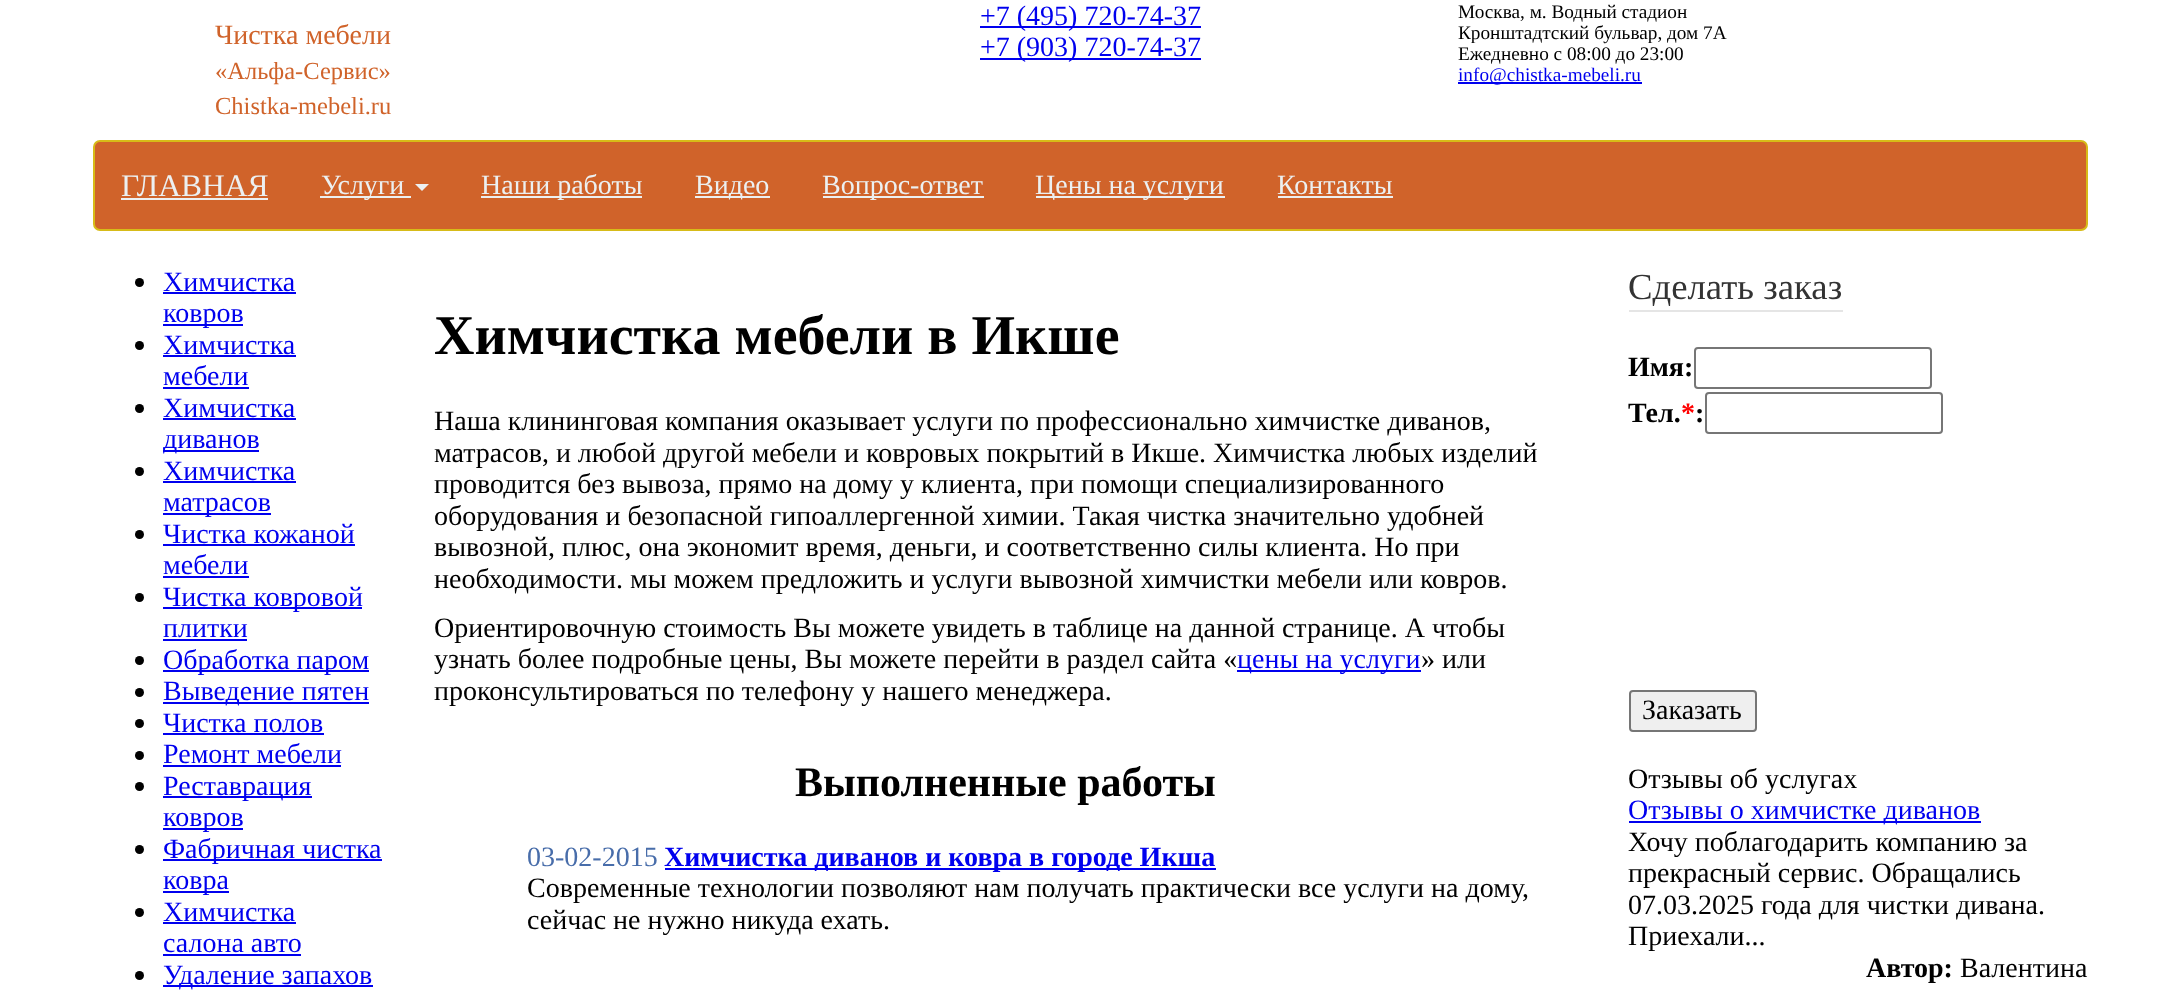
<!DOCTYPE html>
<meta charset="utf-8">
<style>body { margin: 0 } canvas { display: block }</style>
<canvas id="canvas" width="2179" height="1002"></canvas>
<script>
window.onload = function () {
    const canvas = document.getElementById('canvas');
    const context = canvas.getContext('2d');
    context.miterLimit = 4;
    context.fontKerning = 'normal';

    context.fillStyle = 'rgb(255, 255, 255)';
    context.fillRect(0, 0, 2179, 1002);
    context.fillStyle = 'rgb(0, 0, 238)';
    context.fillRect(980, 26, 221, 2);
    context.fillRect(980, 58, 221, 2);
    context.fillRect(1458, 82, 184, 2);
    context.fillStyle = 'rgb(208, 99, 42)';
    context.beginPath();
    context.roundRect(94, 141, 1993, 89, 6);
    context.fill();
    context.strokeStyle = 'rgb(215, 187, 24)';
    context.lineWidth = 2;
    context.stroke();
    context.fillStyle = 'rgb(236, 240, 241)';
    context.fillRect(121, 198, 147, 2);
    context.fillRect(320, 196, 91, 2);
    context.beginPath();
    context.moveTo(415, 184);
    context.lineTo(429, 184);
    context.lineTo(422, 191);
    context.closePath();
    context.fill();
    context.fillRect(481, 196, 161, 2);
    context.fillRect(695, 196, 75, 2);
    context.fillRect(823, 196, 161, 2);
    context.fillRect(1036, 196, 189, 2);
    context.fillRect(1278, 196, 115, 2);
    context.fillStyle = 'rgb(0, 0, 0)';
    context.beginPath();
    context.arc(139.5, 282.5, 4.5, 0, 2 * Math.PI);
    context.fill();
    context.fillStyle = 'rgb(0, 0, 238)';
    context.fillRect(163, 292, 133, 2);
    context.fillRect(163, 324, 80, 2);
    context.fillStyle = 'rgb(0, 0, 0)';
    context.beginPath();
    context.arc(139.5, 345.5, 4.5, 0, 2 * Math.PI);
    context.fill();
    context.fillStyle = 'rgb(0, 0, 238)';
    context.fillRect(163, 355, 133, 2);
    context.fillRect(163, 387, 86, 2);
    context.fillStyle = 'rgb(0, 0, 0)';
    context.beginPath();
    context.arc(139.5, 408.5, 4.5, 0, 2 * Math.PI);
    context.fill();
    context.fillStyle = 'rgb(0, 0, 238)';
    context.fillRect(163, 418, 133, 2);
    context.fillRect(163, 450, 96, 2);
    context.fillStyle = 'rgb(0, 0, 0)';
    context.beginPath();
    context.arc(139.5, 471.5, 4.5, 0, 2 * Math.PI);
    context.fill();
    context.fillStyle = 'rgb(0, 0, 238)';
    context.fillRect(163, 481, 133, 2);
    context.fillRect(163, 513, 108, 2);
    context.fillStyle = 'rgb(0, 0, 0)';
    context.beginPath();
    context.arc(139.5, 534.5, 4.5, 0, 2 * Math.PI);
    context.fill();
    context.fillStyle = 'rgb(0, 0, 238)';
    context.fillRect(163, 544, 192, 2);
    context.fillRect(163, 576, 86, 2);
    context.fillStyle = 'rgb(0, 0, 0)';
    context.beginPath();
    context.arc(139.5, 597.5, 4.5, 0, 2 * Math.PI);
    context.fill();
    context.fillStyle = 'rgb(0, 0, 238)';
    context.fillRect(163, 607, 199, 2);
    context.fillRect(163, 639, 84, 2);
    context.fillStyle = 'rgb(0, 0, 0)';
    context.beginPath();
    context.arc(139.5, 660.5, 4.5, 0, 2 * Math.PI);
    context.fill();
    context.fillStyle = 'rgb(0, 0, 238)';
    context.fillRect(163, 670, 206, 2);
    context.fillStyle = 'rgb(0, 0, 0)';
    context.beginPath();
    context.arc(139.5, 692.5, 4.5, 0, 2 * Math.PI);
    context.fill();
    context.fillStyle = 'rgb(0, 0, 238)';
    context.fillRect(163, 702, 206, 2);
    context.fillStyle = 'rgb(0, 0, 0)';
    context.beginPath();
    context.arc(139.5, 723.5, 4.5, 0, 2 * Math.PI);
    context.fill();
    context.fillStyle = 'rgb(0, 0, 238)';
    context.fillRect(163, 733, 161, 2);
    context.fillStyle = 'rgb(0, 0, 0)';
    context.beginPath();
    context.arc(139.5, 755.5, 4.5, 0, 2 * Math.PI);
    context.fill();
    context.fillStyle = 'rgb(0, 0, 238)';
    context.fillRect(163, 765, 178, 2);
    context.fillStyle = 'rgb(0, 0, 0)';
    context.beginPath();
    context.arc(139.5, 786.5, 4.5, 0, 2 * Math.PI);
    context.fill();
    context.fillStyle = 'rgb(0, 0, 238)';
    context.fillRect(163, 796, 149, 2);
    context.fillRect(163, 828, 80, 2);
    context.fillStyle = 'rgb(0, 0, 0)';
    context.beginPath();
    context.arc(139.5, 849.5, 4.5, 0, 2 * Math.PI);
    context.fill();
    context.fillStyle = 'rgb(0, 0, 238)';
    context.fillRect(163, 859, 219, 2);
    context.fillRect(163, 891, 66, 2);
    context.fillStyle = 'rgb(0, 0, 0)';
    context.beginPath();
    context.arc(139.5, 912.5, 4.5, 0, 2 * Math.PI);
    context.fill();
    context.fillStyle = 'rgb(0, 0, 238)';
    context.fillRect(163, 922, 133, 2);
    context.fillRect(163, 954, 138, 2);
    context.fillStyle = 'rgb(0, 0, 0)';
    context.beginPath();
    context.arc(139.5, 975.5, 4.5, 0, 2 * Math.PI);
    context.fill();
    context.fillStyle = 'rgb(0, 0, 238)';
    context.fillRect(163, 985, 210, 2);
    context.fillRect(1237, 670, 184, 2);
    context.fillRect(665, 868, 551, 2);
    context.fillStyle = 'rgb(229, 229, 229)';
    context.fillRect(1629, 310, 214, 2);
    context.beginPath();
    context.roundRect(1695, 348, 236, 40, 3);
    context.strokeStyle = 'rgb(118, 118, 118)';
    context.stroke();
    context.beginPath();
    context.roundRect(1706, 393, 236, 40, 3);
    context.stroke();
    context.fillStyle = 'rgb(239, 239, 239)';
    context.beginPath();
    context.roundRect(1630, 691, 126, 40, 3);
    context.fill();
    context.stroke();
    context.fillStyle = 'rgb(0, 0, 238)';
    context.fillRect(1629, 821, 352, 2);
    context.font = '28px Liberation Serif';
    context.fillStyle = 'rgb(208, 99, 42)';
    context.fillText('Чистка мебели', 215, 44);
    context.font = '24.5px Liberation Serif';
    context.fillText('«Альфа-Сервис»', 215, 79);
    context.fillText('Chistka-mebeli.ru', 215, 114);
    context.font = '28px Liberation Serif';
    context.fillStyle = 'rgb(0, 0, 238)';
    context.fillText('+7 (495) 720-74-37', 980, 25);
    context.fillText('+7 (903) 720-74-37', 980, 56);
    context.font = '19.25px Liberation Serif';
    context.fillStyle = 'rgb(0, 0, 0)';
    context.fillText('Москва, м. Водный стадион', 1458, 18);
    context.fillText('Кронштадтский бульвар, дом 7А', 1458, 39);
    context.fillText('Ежедневно с 08:00 до 23:00', 1458, 60);
    context.fillStyle = 'rgb(0, 0, 238)';
    context.fillText('info@chistka-mebeli.ru', 1458, 81);
    context.font = '31.5px Liberation Serif';
    context.fillStyle = 'rgb(236, 240, 241)';
    context.fillText('ГЛАВНАЯ', 121, 196);
    context.font = '28px Liberation Serif';
    context.fillText('Услуги', 321, 194);
    context.fillText('Наши работы', 481, 194);
    context.fillText('Видео', 695, 194);
    context.fillText('Вопроc-ответ', 822, 194);
    context.fillText('Цены на услуги', 1035, 194);
    context.fillText('Контакты', 1277, 194);
    context.fillStyle = 'rgb(0, 0, 238)';
    context.fillText('Химчистка', 163, 291);
    context.fillText('ковров', 163, 322);
    context.fillText('Химчистка', 163, 354);
    context.fillText('мебели', 163, 385);
    context.fillText('Химчистка', 163, 417);
    context.fillText('диванов', 163, 448);
    context.fillText('Химчистка', 163, 480);
    context.fillText('матрасов', 163, 511);
    context.fillText('Чистка кожаной', 163, 543);
    context.fillText('мебели', 163, 574);
    context.fillText('Чистка ковровой', 163, 606);
    context.fillText('плитки', 163, 637);
    context.fillText('Обработка паром', 163, 669);
    context.fillText('Выведение пятен', 163, 700);
    context.fillText('Чистка полов', 163, 732);
    context.fillText('Ремонт мебели', 163, 763);
    context.fillText('Реставрация', 163, 795);
    context.fillText('ковров', 163, 826);
    context.fillText('Фабричная чистка', 163, 858);
    context.fillText('ковра', 163, 889);
    context.fillText('Химчистка', 163, 921);
    context.fillText('салона авто', 163, 952);
    context.fillText('Удаление запахов', 163, 984);
    context.font = 'bold 56px Liberation Serif';
    context.fillStyle = 'rgb(0, 0, 0)';
    context.fillText('Химчистка мебели в Икше', 434, 354);
    context.font = '28px Liberation Serif';
    context.fillText('Наша клининговая компания оказывает услуги по профессионально химчистке диванов,', 434, 430);
    context.fillText('матрасов, и любой другой мебели и ковровых покрытий в Икше. Химчистка любых изделий', 434, 462);
    context.fillText('проводится без вывоза, прямо на дому у клиента, при помощи специализированного', 434, 493);
    context.fillText('оборудования и безопасной гипоаллергенной химии. Такая чистка значительно удобней', 434, 525);
    context.fillText('вывозной, плюс, она экономит время, деньги, и соответственно силы клиента. Но при', 434, 556);
    context.fillText('необходимости. мы можем предложить и услуги вывозной химчистки мебели или ковров.', 434, 588);
    context.fillText('Ориентировочную стоимость Вы можете увидеть в таблице на данной странице. А чтобы', 434, 637);
    context.fillText('узнать более подробные цены, Вы можете перейти в раздел сайта «', 434, 668);
    context.fillStyle = 'rgb(0, 0, 238)';
    context.fillText('цены на услуги', 1237, 668);
    context.fillStyle = 'rgb(0, 0, 0)';
    context.fillText('» или', 1421, 668);
    context.fillText('проконсультироваться по телефону у нашего менеджера.', 434, 700);
    context.font = 'bold 42px Liberation Serif';
    context.fillText('Выполненные работы', 795, 796);
    context.font = '28px Liberation Serif';
    context.fillStyle = 'rgb(72, 109, 170)';
    context.fillText('03-02-2015', 527, 866);
    context.font = 'bold 28px Liberation Serif';
    context.fillStyle = 'rgb(0, 0, 238)';
    context.fillText('Химчистка диванов и ковра в городе Икша', 664, 866);
    context.font = '28px Liberation Serif';
    context.fillStyle = 'rgb(0, 0, 0)';
    context.fillText('Современные технологии позволяют нам получать практически все услуги на дому,', 527, 897);
    context.fillText('сейчас не нужно никуда ехать.', 527, 929);
    context.font = '36.75px Liberation Serif';
    context.fillStyle = 'rgb(51, 51, 51)';
    context.fillText('Сделать заказ', 1628, 299);
    context.font = 'bold 28px Liberation Serif';
    context.fillStyle = 'rgb(0, 0, 0)';
    context.fillText('Имя:', 1628, 376);
    context.fillText('Тел.', 1628, 422);
    context.fillStyle = 'rgb(255, 0, 0)';
    context.fillText('*', 1681, 422);
    context.fillStyle = 'rgb(0, 0, 0)';
    context.fillText(':', 1695, 422);
    context.font = '28px Liberation Serif';
    context.fillText('Заказать', 1642, 719);
    context.fillText('Отзывы об услугах', 1628, 788);
    context.fillStyle = 'rgb(0, 0, 238)';
    context.fillText('Отзывы о химчистке диванов', 1628, 819);
    context.fillStyle = 'rgb(0, 0, 0)';
    context.fillText('Хочу поблагодарить компанию за', 1628, 851);
    context.fillText('прекрасный сервис. Обращались', 1628, 882);
    context.fillText('07.03.2025 года для чистки дивана.', 1628, 914);
    context.fillText('Приехали...', 1628, 945);
    context.font = 'bold 28px Liberation Serif';
    context.fillText('Автор:', 1866, 977);
    context.font = '28px Liberation Serif';
    context.fillText('Валентина', 1960, 977);
};
</script>
